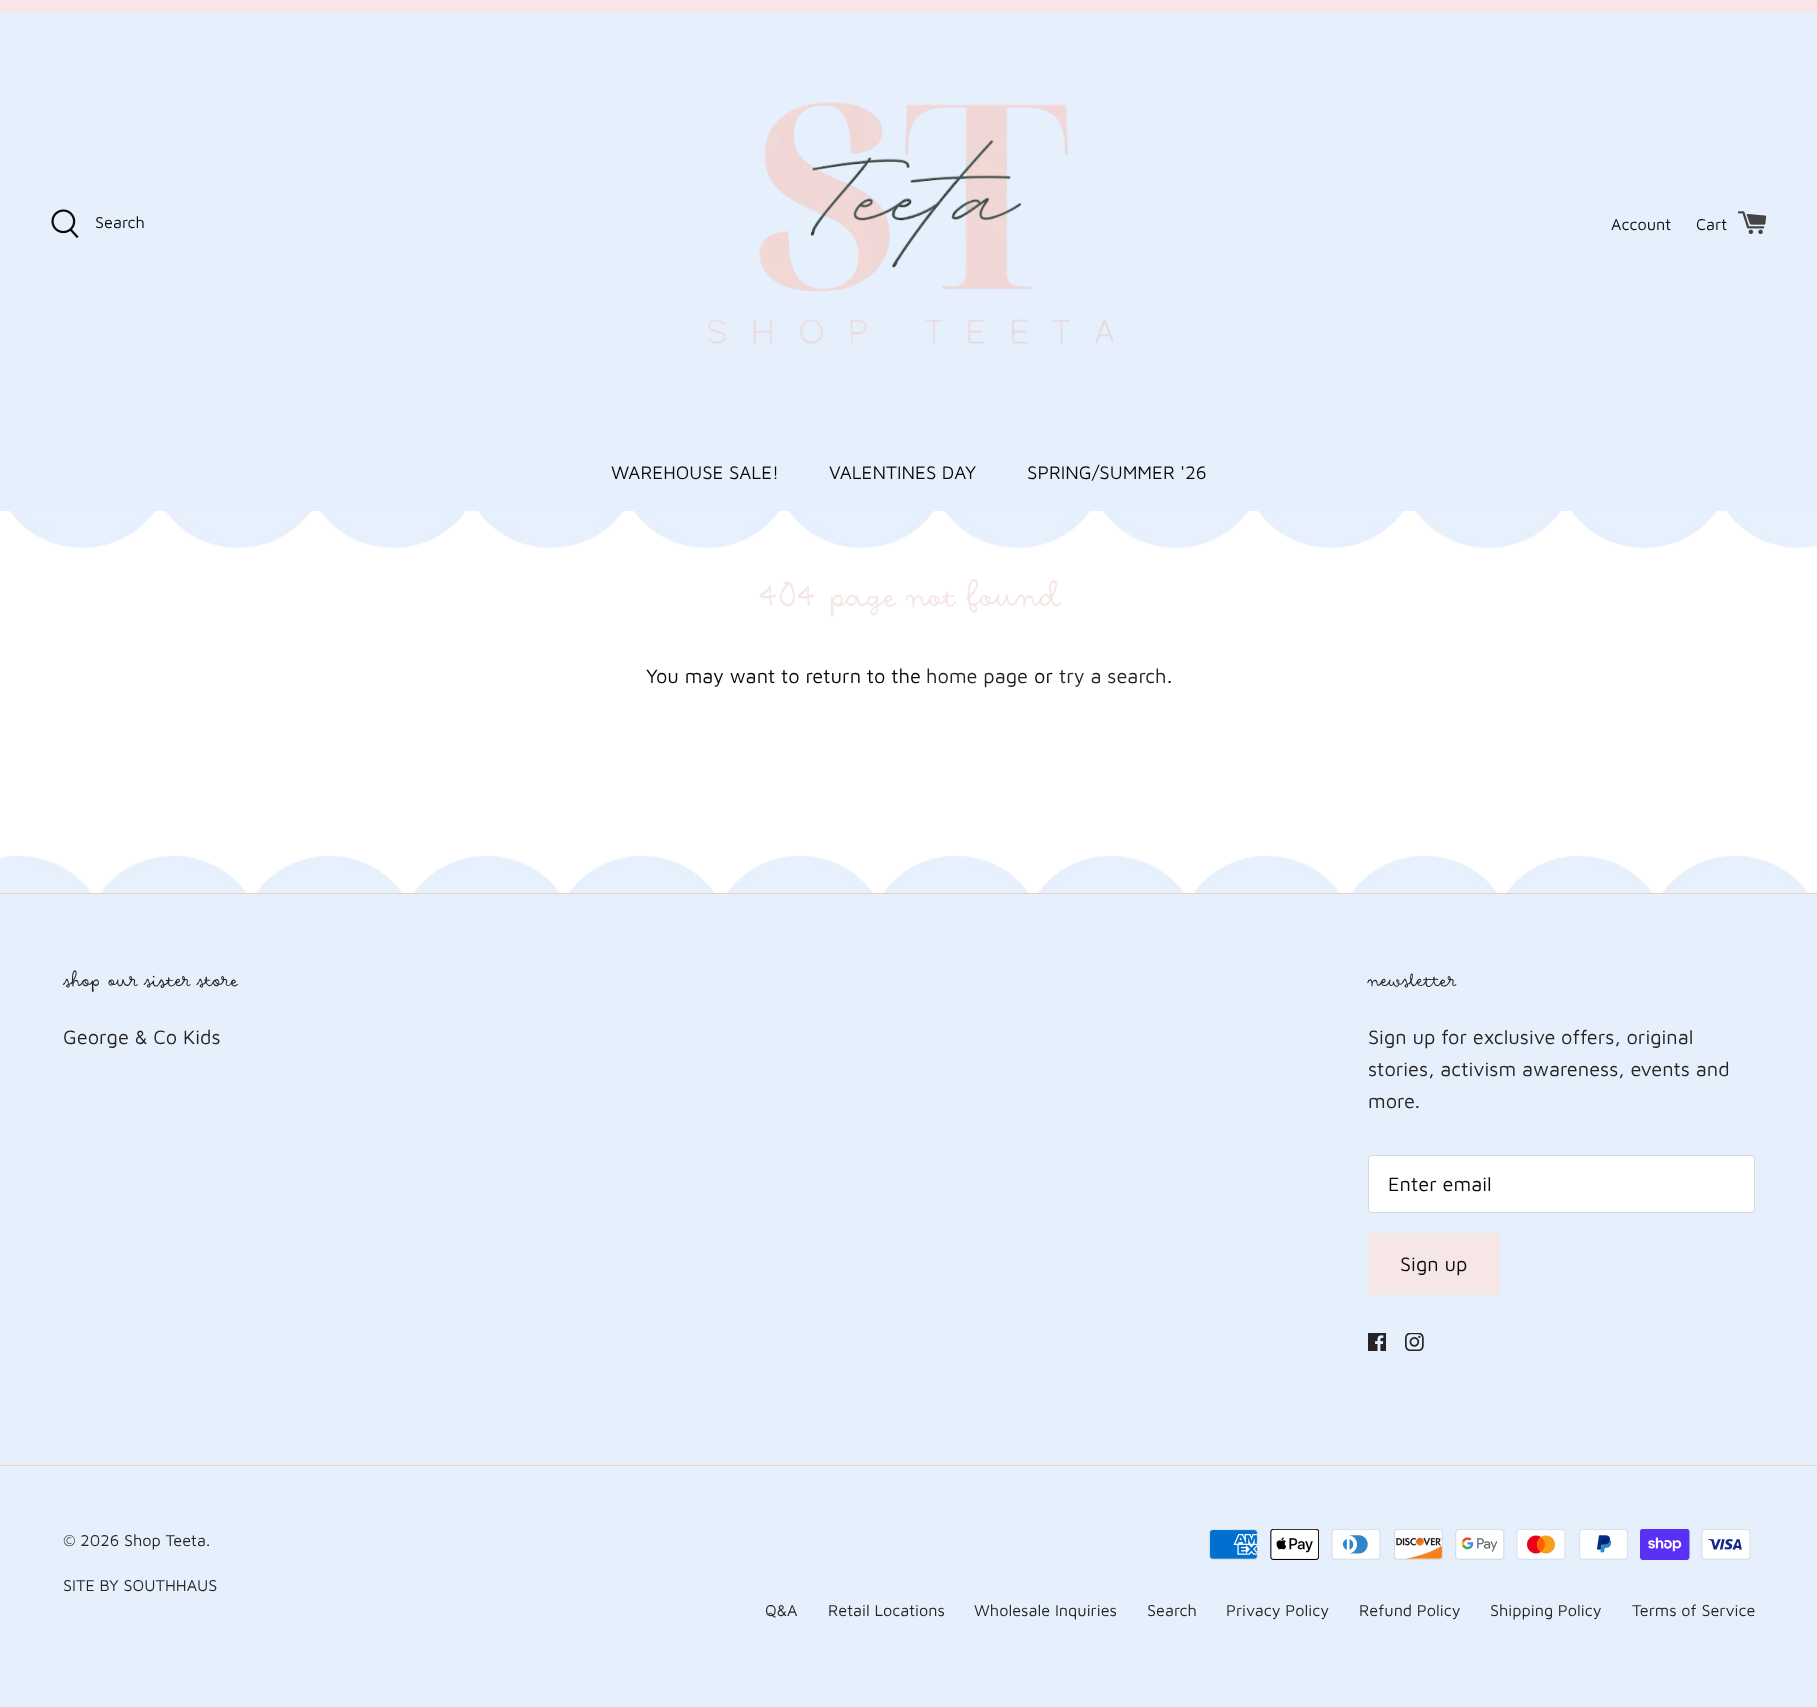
<!DOCTYPE html>
<meta charset="utf-8">
<style>body { margin: 0 } canvas { display: block }</style>
<canvas id="canvas" width="1817" height="1707"></canvas>
<img id="img1" src="images/1.png" hidden>
<img id="img2" src="images/2.png" hidden>
<img id="img3" src="images/3.png" hidden>
<img id="img4" src="images/4.png" hidden>
<img id="img5" src="images/5.png" hidden>
<img id="img6" src="images/6.png" hidden>
<img id="img7" src="images/7.png" hidden>
<img id="img8" src="images/8.png" hidden>
<img id="img9" src="images/9.png" hidden>
<img id="img10" src="images/10.png" hidden>
<img id="img11" src="images/11.png" hidden>
<img id="img12" src="images/12.png" hidden>
<img id="img13" src="images/13.png" hidden>
<img id="img14" src="images/14.png" hidden>
<img id="img15" src="images/15.png" hidden>
<img id="img16" src="images/16.png" hidden>
<script>
window.onload = function () {
    const canvas = document.getElementById('canvas');
    const context = canvas.getContext('2d');
    context.miterLimit = 4;
    context.fontKerning = 'normal';

    context.fillStyle = 'rgb(255, 255, 255)';
    context.fillRect(0, 0, 1817, 1707);
    context.fillStyle = 'rgb(246, 230, 230)';
    context.fillRect(0, 0, 1817, 13);
    context.fillStyle = 'rgb(230, 240, 253)';
    context.fillRect(0, 13, 1817, 498);
    context.drawImage(document.getElementById('img1'), 51, 209, 28, 29);
    context.drawImage(document.getElementById('img2'), 708, 102, 406, 242);
    context.drawImage(document.getElementById('img3'), 1738, 211, 29, 24);
    context.drawImage(document.getElementById('img4'), 9, 511, 1808, 38);
    context.fillRect(0, 894, 1817, 813);
    context.drawImage(document.getElementById('img5'), 0, 855, 1809, 38);
    context.fillStyle = 'rgb(238, 206, 192)';
    context.fillRect(0, 893, 1817, 1);
    context.fillStyle = 'rgb(255, 255, 255)';
    context.beginPath();
    context.roundRect(1368.5, 1155.5, 386, 57, 3.5);
    context.fill();
    context.strokeStyle = 'rgb(218, 218, 218)';
    context.stroke();
    context.fillStyle = 'rgb(246, 230, 230)';
    context.beginPath();
    context.roundRect(1368.5, 1233.5, 131, 61, 3.5);
    context.fill();
    context.strokeStyle = 'rgb(246, 230, 230)';
    context.stroke();
    context.drawImage(document.getElementById('img6'), 1368, 1333, 18, 18);
    context.drawImage(document.getElementById('img7'), 1405, 1333, 19, 18);
    context.fillStyle = 'rgb(238, 206, 192)';
    context.fillRect(0, 1465, 1817, 1);
    context.drawImage(document.getElementById('img8'), 1209, 1529, 49, 31);
    context.drawImage(document.getElementById('img9'), 1270, 1529, 49, 31);
    context.drawImage(document.getElementById('img10'), 1331, 1529, 50, 31);
    context.drawImage(document.getElementById('img11'), 1394, 1529, 49, 31);
    context.drawImage(document.getElementById('img12'), 1455, 1529, 50, 31);
    context.drawImage(document.getElementById('img13'), 1516, 1529, 50, 31);
    context.drawImage(document.getElementById('img14'), 1579, 1529, 49, 31);
    context.drawImage(document.getElementById('img15'), 1640, 1529, 50, 31);
    context.drawImage(document.getElementById('img16'), 1701, 1529, 50, 31);
    context.font = '16.25px Maven Pro';
    context.fillStyle = 'rgb(8, 8, 8)';
    context.fillText('Search', 95, 228);
    context.fillText('Account', 1611, 230);
    context.fillText('Cart', 1696, 230);
    context.font = '18.75px Maven Pro';
    context.fillText('WAREHOUSE SALE!', 611, 479);
    context.fillText('VALENTINES DAY', 829, 479);
    context.fillText('SPRING/SUMMER \'26', 1027, 479);
    context.font = '41.25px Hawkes';
    context.fillStyle = 'rgb(246, 230, 230)';
    context.fillText('404 page not found', 759, 606);
    context.font = '20px Maven Pro';
    context.fillStyle = 'rgb(8, 8, 8)';
    context.fillText('You may want to return to the', 646, 683);
    context.fillStyle = 'rgb(37, 35, 35)';
    context.fillText('home page', 926, 683);
    context.fillStyle = 'rgb(8, 8, 8)';
    context.fillText('or', 1034, 683);
    context.fillStyle = 'rgb(37, 35, 35)';
    context.fillText('try a search', 1059, 683);
    context.fillStyle = 'rgb(8, 8, 8)';
    context.fillText('.', 1167, 683);
    context.font = '23.75px Hawkes';
    context.fillStyle = 'rgb(37, 35, 35)';
    context.fillText('shop our sister store', 63, 986);
    context.font = '20px Maven Pro';
    context.fillText('George & Co Kids', 63, 1044);
    context.font = '23.75px Hawkes';
    context.fillText('newsletter', 1368, 986);
    context.font = '20px Maven Pro';
    context.fillText('Sign up for exclusive offers, original', 1368, 1044);
    context.fillText('stories, activism awareness, events and', 1368, 1076);
    context.fillText('more.', 1368, 1108);
    context.fillStyle = 'rgb(8, 8, 8)';
    context.fillText('Enter email', 1388, 1191);
    context.fillText('Sign up', 1400, 1271);
    context.font = '16.25px Maven Pro';
    context.fillStyle = 'rgb(37, 35, 35)';
    context.fillText('© 2026 Shop Teeta.', 63, 1546);
    context.fillText('SITE BY SOUTHHAUS', 63, 1591);
    context.fillText('Q&A', 765, 1616);
    context.fillText('Retail Locations', 828, 1616);
    context.fillText('Wholesale Inquiries', 974, 1616);
    context.fillText('Search', 1147, 1616);
    context.fillText('Privacy Policy', 1226, 1616);
    context.fillText('Refund Policy', 1359, 1616);
    context.fillText('Shipping Policy', 1490, 1616);
    context.fillText('Terms of Service', 1632, 1616);
};
</script>
